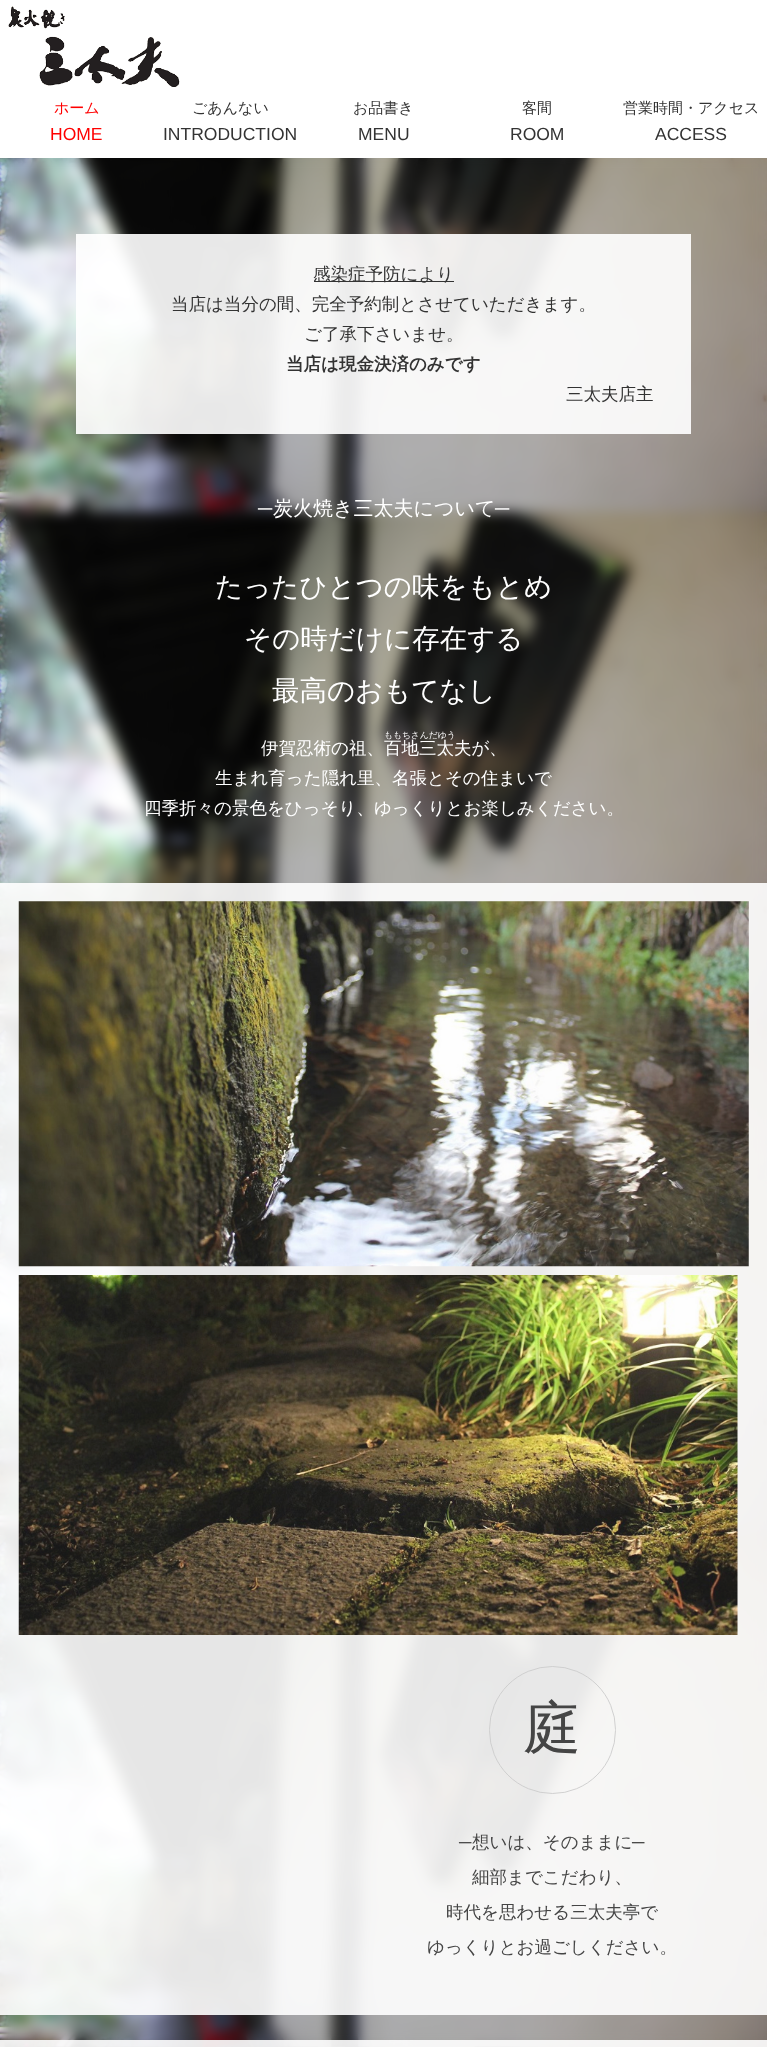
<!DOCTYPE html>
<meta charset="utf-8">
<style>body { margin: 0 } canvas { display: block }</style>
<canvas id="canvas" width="767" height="2047"></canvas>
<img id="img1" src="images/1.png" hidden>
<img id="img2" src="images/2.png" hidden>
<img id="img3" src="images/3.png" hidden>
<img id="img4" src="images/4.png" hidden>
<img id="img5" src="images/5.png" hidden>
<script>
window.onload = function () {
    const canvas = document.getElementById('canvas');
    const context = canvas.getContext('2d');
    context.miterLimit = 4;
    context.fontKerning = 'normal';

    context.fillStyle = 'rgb(255, 255, 255)';
    context.fillRect(0, 0, 767, 2047);
    context.drawImage(document.getElementById('img1'), 8, 6, 172, 81);
    context.drawImage(document.getElementById('img2'), 0, 158, 767, 1889);
    context.drawImage(document.getElementById('img3'), 0, 158, 767, 1889);
    context.fillStyle = 'rgba(255, 255, 255, 0.91)';
    context.fillRect(76, 234, 615, 200);
    context.fillStyle = 'rgb(51, 51, 51)';
    context.fillRect(314, 281, 140, 1);
    context.fillStyle = 'rgba(255, 255, 255, 0.9)';
    context.fillRect(0, 883, 767, 1132);
    context.drawImage(document.getElementById('img4'), 18, 901, 731, 366);
    context.drawImage(document.getElementById('img5'), 18, 1275, 720, 360);
    context.beginPath();
    context.roundRect(489.5, 1666.5, 126, 127, 63);
    context.strokeStyle = 'rgba(204, 204, 204, 0.9)';
    context.stroke();
    context.fillRect(0, 2040, 767, 7);
    context.font = '500 15px WenQuanYi Zen Hei';
    context.fillStyle = 'rgb(255, 0, 0)';
    context.fillText('ホーム', 54, 113);
    context.font = '17.5px Liberation Sans';
    context.fillText('HOME', 50, 140);
    context.font = '500 15px WenQuanYi Zen Hei';
    context.fillStyle = 'rgb(51, 51, 51)';
    context.fillText('ごあんない', 192, 113);
    context.font = '17.5px Liberation Sans';
    context.fillText('INTRODUCTION', 163, 140);
    context.font = '500 15px WenQuanYi Zen Hei';
    context.fillText('お品書き', 353, 113);
    context.font = '17.5px Liberation Sans';
    context.fillText('MENU', 358, 140);
    context.font = '500 15px WenQuanYi Zen Hei';
    context.fillText('客間', 522, 113);
    context.font = '17.5px Liberation Sans';
    context.fillText('ROOM', 510, 140);
    context.font = '500 15px WenQuanYi Zen Hei';
    context.fillText('営業時間・アクセス', 623, 113);
    context.font = '17.5px Liberation Sans';
    context.fillText('ACCESS', 655, 140);
    context.font = '500 17.5px WenQuanYi Zen Hei';
    context.fillText('感染症予防により', 313, 280);
    context.fillText('当店は当分の間、完全予約制とさせていただきます。', 171, 310);
    context.fillText('ご了承下さいませ。', 304, 340);
    context.font = 'bold 17.5px WenQuanYi Zen Hei';
    context.fillText('当店は現金決済のみです', 286, 370);
    context.font = '500 17.5px WenQuanYi Zen Hei';
    context.fillText('三太夫店主', 566, 400);
    context.font = '20px Liberation Sans';
    context.fillStyle = 'rgb(255, 255, 255)';
    context.fillText('─', 258, 515);
    context.font = '500 20px WenQuanYi Zen Hei';
    context.fillText('炭火焼き三太夫について', 273, 515);
    context.font = '20px Liberation Sans';
    context.fillText('─', 495, 515);
    context.font = '500 27.5px WenQuanYi Zen Hei';
    context.fillText('たったひとつの味をもとめ', 215, 596);
    context.fillText('その時だけに存在する', 244, 648);
    context.fillText('最高のおもてなし', 272, 700);
    context.font = '500 8.75px WenQuanYi Zen Hei';
    context.fillText('ももちさんだゆう', 384, 738);
    context.font = '500 17.5px WenQuanYi Zen Hei';
    context.fillText('伊賀忍術の祖、百地三太夫が、', 261, 754);
    context.fillText('生まれ育った隠れ里、名張とその住まいで', 215, 784);
    context.fillText('四季折々の景色をひっそり、ゆっくりとお楽しみください。', 144, 814);
    context.font = '500 58px WenQuanYi Zen Hei';
    context.fillStyle = 'rgb(69, 69, 69)';
    context.fillText('庭', 523, 1748);
    context.font = '17.5px Liberation Sans';
    context.fillText('─', 459, 1848);
    context.font = '500 17.5px WenQuanYi Zen Hei';
    context.fillText('想いは、そのままに', 472, 1848);
    context.font = '17.5px Liberation Sans';
    context.fillStyle = 'rgb(62, 62, 61)';
    context.fillText('─', 632, 1848);
    context.font = '500 17.5px WenQuanYi Zen Hei';
    context.fillStyle = 'rgb(69, 69, 69)';
    context.fillText('細部までこだわり、', 472, 1883);
    context.fillText('時代を思わせる三太夫亭で', 446, 1918);
    context.fillText('ゆっくりとお過ごしください。', 427, 1953);
};
</script>
